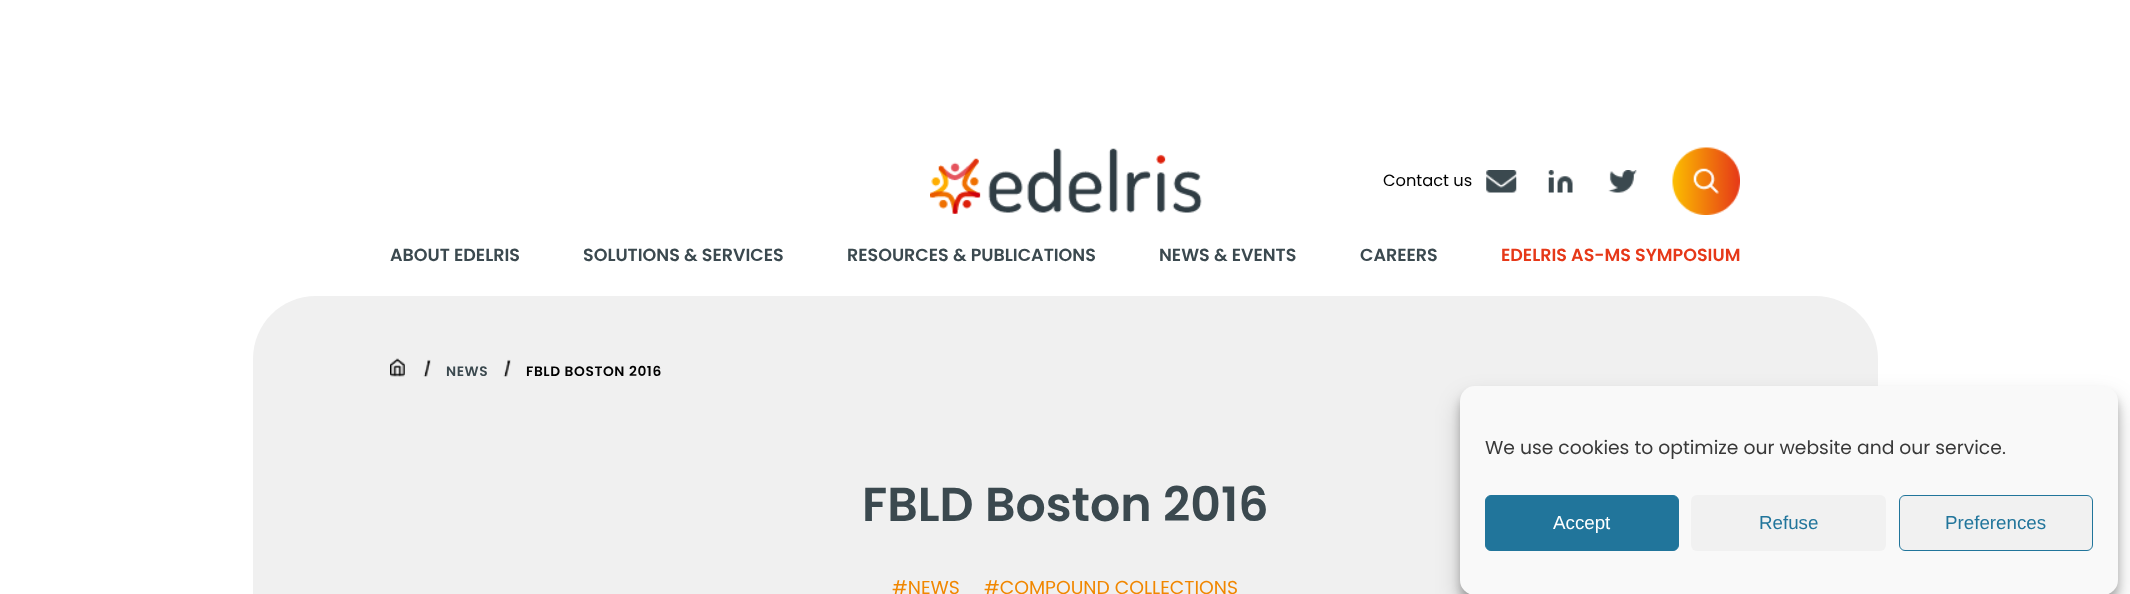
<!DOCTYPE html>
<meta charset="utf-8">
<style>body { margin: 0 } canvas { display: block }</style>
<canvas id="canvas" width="2130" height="594"></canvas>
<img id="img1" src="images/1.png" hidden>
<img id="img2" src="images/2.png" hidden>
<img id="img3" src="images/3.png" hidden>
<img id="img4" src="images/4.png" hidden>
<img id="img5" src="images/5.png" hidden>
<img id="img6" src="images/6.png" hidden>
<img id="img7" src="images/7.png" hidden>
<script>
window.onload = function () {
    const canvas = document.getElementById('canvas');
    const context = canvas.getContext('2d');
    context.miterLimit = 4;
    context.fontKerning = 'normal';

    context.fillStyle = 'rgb(255, 255, 255)';
    context.fillRect(0, 0, 2130, 594);
    context.drawImage(document.getElementById('img1'), 930, 148, 272, 66);
    context.drawImage(document.getElementById('img2'), 1486, 170, 31, 23);
    context.drawImage(document.getElementById('img3'), 1548, 170, 25, 23);
    context.drawImage(document.getElementById('img4'), 1608, 170, 29, 23);
    context.drawImage(document.getElementById('img5'), 1672, 147, 68, 68);
    context.fillStyle = 'rgb(240, 240, 240)';
    context.beginPath();
    context.moveTo(316, 296);
    context.lineTo(1815, 296);
    context.bezierCurveTo(1850, 296, 1878, 324, 1878, 359);
    context.lineTo(1878, 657);
    context.lineTo(253, 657);
    context.lineTo(253, 359);
    context.bezierCurveTo(253, 324, 281, 296, 316, 296);
    context.closePath();
    context.fill();
    context.drawImage(document.getElementById('img6'), 390, 358, 15, 19);
    context.drawImage(document.getElementById('img7'), 423, 359, 8, 18);
    context.drawImage(document.getElementById('img7'), 503, 359, 8, 18);
    context.fillStyle = 'rgba(0, 0, 0, 0.23)';
    context.filter = 'blur(4px)';
    context.beginPath();
    context.roundRect(1460, 394, 658, 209, 15);
    context.fill();
    context.filter = 'none';
    context.fillStyle = 'rgba(0, 0, 0, 0.19)';
    context.filter = 'blur(12.5px)';
    context.beginPath();
    context.roundRect(1460, 399, 658, 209, 15);
    context.fill();
    context.filter = 'none';
    context.fillStyle = 'rgb(249, 249, 249)';
    context.beginPath();
    context.roundRect(1460, 386, 658, 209, 15);
    context.fill();
    context.fillStyle = 'rgb(33, 117, 155)';
    context.beginPath();
    context.roundRect(1485.5, 495.5, 193, 55, 5.5);
    context.fill();
    context.strokeStyle = 'rgb(33, 117, 155)';
    context.stroke();
    context.fillStyle = 'rgb(241, 241, 241)';
    context.beginPath();
    context.roundRect(1691, 495, 195, 56, 6);
    context.fill();
    context.beginPath();
    context.roundRect(1899.5, 495.5, 193, 55, 5.5);
    context.fill();
    context.stroke();
    context.font = '16.25px Poppins';
    context.fillStyle = 'rgb(0, 0, 0)';
    context.fillText('Contact us', 1383, 186);
    context.font = '600 17.5px Poppins';
    context.fillStyle = 'rgb(59, 73, 79)';
    context.fillText('ABOUT EDELRIS', 390, 261);
    context.fillText('SOLUTIONS & SERVICES', 583, 261);
    context.fillText('RESOURCES & PUBLICATIONS', 847, 261);
    context.fillText('NEWS & EVENTS', 1159, 261);
    context.fillText('CAREERS', 1360, 261);
    context.fillStyle = 'rgb(230, 56, 24)';
    context.fillText('EDELRIS AS-MS SYMPOSIUM', 1501, 261);
    context.letterSpacing = '0.6px';
    context.font = '600 13.75px Poppins';
    context.fillStyle = 'rgb(59, 73, 79)';
    context.fillText('NEWS', 446, 376);
    context.fillStyle = 'rgb(0, 0, 0)';
    context.fillText('FBLD BOSTON 2016', 526, 376);
    context.letterSpacing = '0px';
    context.font = '600 47.5px Poppins';
    context.fillStyle = 'rgb(59, 73, 79)';
    context.fillText('FBLD Boston 2016', 862, 521);
    context.font = '18.75px Poppins';
    context.fillStyle = 'rgb(241, 135, 0)';
    context.fillText('#NEWS', 892, 594);
    context.fillText('#COMPOUND COLLECTIONS', 984, 594);
    context.fillStyle = 'rgb(57, 57, 57)';
    context.fillText('We use cookies to optimize our website and our service.', 1485, 454);
    context.font = '18.75px Liberation Sans';
    context.fillStyle = 'rgb(255, 255, 255)';
    context.fillText('Accept', 1553, 529);
    context.fillStyle = 'rgb(33, 117, 155)';
    context.fillText('Refuse', 1759, 529);
    context.fillText('Preferences', 1945, 529);
};
</script>
